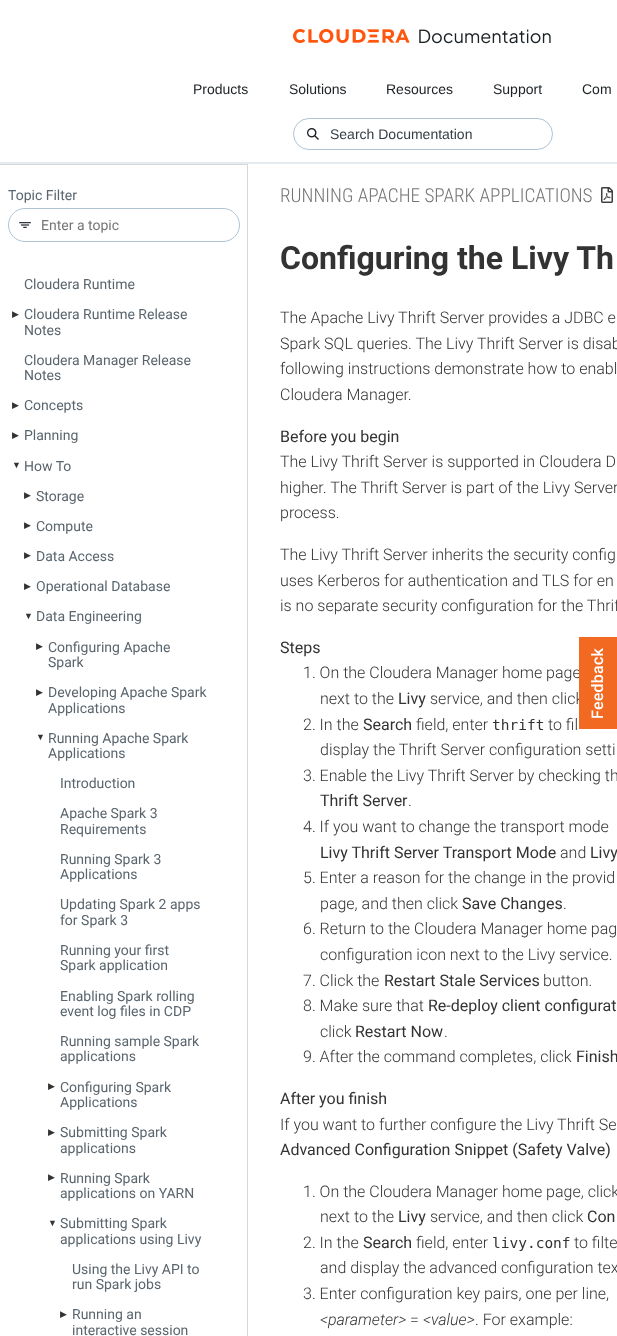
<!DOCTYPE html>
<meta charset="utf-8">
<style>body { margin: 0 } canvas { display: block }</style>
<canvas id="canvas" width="617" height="1336"></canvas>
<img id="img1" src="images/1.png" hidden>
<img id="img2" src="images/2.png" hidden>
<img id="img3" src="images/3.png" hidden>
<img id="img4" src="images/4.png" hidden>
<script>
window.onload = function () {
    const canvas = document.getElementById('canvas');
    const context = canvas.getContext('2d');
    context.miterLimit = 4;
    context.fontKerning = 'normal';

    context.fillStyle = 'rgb(255, 255, 255)';
    context.fillRect(0, 0, 617, 1336);
    context.fillStyle = 'rgb(229, 236, 241)';
    context.fillRect(0, 162, 617, 2);
    context.drawImage(document.getElementById('img1'), 293, 29, 258, 15);
    context.beginPath();
    context.roundRect(293.5, 118.5, 259, 31, 15.5);
    context.strokeStyle = 'rgb(175, 196, 210)';
    context.stroke();
    context.drawImage(document.getElementById('img2'), 307, 128, 12, 12);
    context.save();
    context.beginPath();
    context.rect(0, 164, 248, 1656);
    context.clip();
    context.fillStyle = 'rgb(214, 216, 219)';
    context.beginPath();
    context.moveTo(-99, 65);
    context.lineTo(347, 65);
    context.lineTo(347, 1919);
    context.lineTo(-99, 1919);
    context.closePath();
    context.moveTo(-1, 165);
    context.lineTo(247, 165);
    context.lineTo(247, 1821);
    context.lineTo(-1, 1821);
    context.closePath();
    context.fill('evenodd');
    context.restore();
    context.beginPath();
    context.roundRect(8.5, 208.5, 231, 33, 16.5);
    context.stroke();
    context.drawImage(document.getElementById('img3'), 19, 222, 12, 6);
    context.drawImage(document.getElementById('img4'), 601, 187, 12, 16);
    context.font = '14px Liberation Sans';
    context.fillStyle = 'rgb(26, 32, 36)';
    context.fillText('Products', 193, 94);
    context.fillText('Solutions', 289, 94);
    context.fillText('Resources', 386, 94);
    context.fillText('Support', 493, 94);
    context.fillText('Com', 582, 94);
    context.fillStyle = 'rgb(51, 61, 67)';
    context.fillText('Search Documentation', 330, 139);
    context.font = '14px Roboto';
    context.fillStyle = 'rgb(90, 101, 109)';
    context.fillText('Topic Filter', 8, 200);
    context.fillStyle = 'rgb(117, 117, 117)';
    context.fillText('Enter a topic', 41, 230);
    context.fillStyle = 'rgb(90, 101, 109)';
    context.fillText('Cloudera Runtime', 24, 289);
    context.font = '9px DejaVu Sans';
    context.fillStyle = 'rgb(51, 51, 51)';
    context.fillText('▶︎', 12, 317);
    context.font = '14px Roboto';
    context.fillStyle = 'rgb(90, 101, 109)';
    context.fillText('Cloudera Runtime Release', 24, 319);
    context.fillText('Notes', 24, 335);
    context.fillText('Cloudera Manager Release', 24, 365);
    context.fillText('Notes', 24, 380);
    context.font = '9px DejaVu Sans';
    context.fillStyle = 'rgb(51, 51, 51)';
    context.fillText('▶︎', 12, 408);
    context.font = '14px Roboto';
    context.fillStyle = 'rgb(90, 101, 109)';
    context.fillText('Concepts', 24, 410);
    context.font = '9px DejaVu Sans';
    context.fillStyle = 'rgb(51, 51, 51)';
    context.fillText('▶︎', 12, 438);
    context.font = '14px Roboto';
    context.fillStyle = 'rgb(90, 101, 109)';
    context.fillText('Planning', 24, 440);
    context.font = '9px Liberation Sans';
    context.fillStyle = 'rgb(51, 51, 51)';
    context.fillText('▼', 12, 468);
    context.font = '14px Roboto';
    context.fillStyle = 'rgb(90, 101, 109)';
    context.fillText('How To', 24, 471);
    context.font = '9px DejaVu Sans';
    context.fillStyle = 'rgb(51, 51, 51)';
    context.fillText('▶︎', 24, 498);
    context.font = '14px Roboto';
    context.fillStyle = 'rgb(90, 101, 109)';
    context.fillText('Storage', 36, 501);
    context.font = '9px DejaVu Sans';
    context.fillStyle = 'rgb(51, 51, 51)';
    context.fillText('▶︎', 24, 528);
    context.font = '14px Roboto';
    context.fillStyle = 'rgb(90, 101, 109)';
    context.fillText('Compute', 36, 531);
    context.font = '9px DejaVu Sans';
    context.fillStyle = 'rgb(51, 51, 51)';
    context.fillText('▶︎', 24, 558);
    context.font = '14px Roboto';
    context.fillStyle = 'rgb(90, 101, 109)';
    context.fillText('Data Access', 36, 561);
    context.font = '9px DejaVu Sans';
    context.fillStyle = 'rgb(51, 51, 51)';
    context.fillText('▶︎', 24, 589);
    context.font = '14px Roboto';
    context.fillStyle = 'rgb(90, 101, 109)';
    context.fillText('Operational Database', 36, 591);
    context.font = '9px Liberation Sans';
    context.fillStyle = 'rgb(51, 51, 51)';
    context.fillText('▼', 24, 619);
    context.font = '14px Roboto';
    context.fillStyle = 'rgb(90, 101, 109)';
    context.fillText('Data Engineering', 36, 621);
    context.font = '9px DejaVu Sans';
    context.fillStyle = 'rgb(51, 51, 51)';
    context.fillText('▶︎', 36, 649);
    context.font = '14px Roboto';
    context.fillStyle = 'rgb(90, 101, 109)';
    context.fillText('Configuring Apache', 48, 652);
    context.fillText('Spark', 48, 667);
    context.font = '9px DejaVu Sans';
    context.fillStyle = 'rgb(51, 51, 51)';
    context.fillText('▶︎', 36, 695);
    context.font = '14px Roboto';
    context.fillStyle = 'rgb(90, 101, 109)';
    context.fillText('Developing Apache Spark', 48, 697);
    context.fillText('Applications', 48, 713);
    context.font = '9px Liberation Sans';
    context.fillStyle = 'rgb(51, 51, 51)';
    context.fillText('▼', 36, 740);
    context.font = '14px Roboto';
    context.fillStyle = 'rgb(90, 101, 109)';
    context.fillText('Running Apache Spark', 48, 743);
    context.fillText('Applications', 48, 758);
    context.fillText('Introduction', 60, 788);
    context.fillText('Apache Spark 3', 60, 818);
    context.fillText('Requirements', 60, 834);
    context.fillText('Running Spark 3', 60, 864);
    context.fillText('Applications', 60, 879);
    context.fillText('Updating Spark 2 apps', 60, 909);
    context.fillText('for Spark 3', 60, 925);
    context.fillText('Running your first', 60, 955);
    context.fillText('Spark application', 60, 970);
    context.fillText('Enabling Spark rolling', 60, 1001);
    context.fillText('event log files in CDP', 60, 1016);
    context.fillText('Running sample Spark', 60, 1046);
    context.fillText('applications', 60, 1061);
    context.font = '9px DejaVu Sans';
    context.fillStyle = 'rgb(51, 51, 51)';
    context.fillText('▶︎', 48, 1089);
    context.font = '14px Roboto';
    context.fillStyle = 'rgb(90, 101, 109)';
    context.fillText('Configuring Spark', 60, 1092);
    context.fillText('Applications', 60, 1107);
    context.font = '9px DejaVu Sans';
    context.fillStyle = 'rgb(51, 51, 51)';
    context.fillText('▶︎', 48, 1135);
    context.font = '14px Roboto';
    context.fillStyle = 'rgb(90, 101, 109)';
    context.fillText('Submitting Spark', 60, 1137);
    context.fillText('applications', 60, 1153);
    context.font = '9px DejaVu Sans';
    context.fillStyle = 'rgb(51, 51, 51)';
    context.fillText('▶︎', 48, 1180);
    context.font = '14px Roboto';
    context.fillStyle = 'rgb(90, 101, 109)';
    context.fillText('Running Spark', 60, 1183);
    context.fillText('applications on YARN', 60, 1198);
    context.font = '9px Liberation Sans';
    context.fillStyle = 'rgb(51, 51, 51)';
    context.fillText('▼', 48, 1226);
    context.font = '14px Roboto';
    context.fillStyle = 'rgb(90, 101, 109)';
    context.fillText('Submitting Spark', 60, 1228);
    context.fillText('applications using Livy', 60, 1244);
    context.fillText('Using the Livy API to', 72, 1274);
    context.fillText('run Spark jobs', 72, 1289);
    context.font = '9px DejaVu Sans';
    context.fillStyle = 'rgb(51, 51, 51)';
    context.fillText('▶︎', 60, 1317);
    context.font = '14px Roboto';
    context.fillStyle = 'rgb(90, 101, 109)';
    context.fillText('Running an', 72, 1319);
    context.fillText('interactive session', 72, 1335);
    context.font = '300 19.25px Roboto Condensed';
    context.fillStyle = 'rgb(117, 117, 117)';
    context.fillText('RUNNING APACHE SPARK APPLICATIONS', 280, 202);
    context.font = 'bold 32px Roboto';
    context.fillStyle = 'rgb(51, 51, 51)';
    context.fillText('Configuring the Livy Th', 280, 269);
    context.font = '300 16px Roboto';
    context.fillText('The Apache Livy Thrift Server provides a JDBC e', 280, 323);
    context.fillText('Spark SQL queries. The Livy Thrift Server is disab', 280, 349);
    context.fillText('following instructions demonstrate how to enabl', 280, 374);
    context.fillText('Cloudera Manager.', 280, 400);
    context.font = '16px Roboto';
    context.fillText('Before you begin', 280, 442);
    context.font = '300 16px Roboto';
    context.fillText('The Livy Thrift Server is supported in Cloudera D', 280, 467);
    context.fillText('higher. The Thrift Server is part of the Livy Server', 280, 493);
    context.fillText('process.', 280, 518);
    context.fillText('The Livy Thrift Server inherits the security config', 280, 560);
    context.fillText('uses Kerberos for authentication and TLS for en', 280, 586);
    context.fillText('is no separate security configuration for the Thrif', 280, 611);
    context.font = '16px Roboto';
    context.fillText('Steps', 280, 653);
    context.font = '300 16px Roboto';
    context.fillText('1. On the Cloudera Manager home page', 303, 678);
    context.fillText('next to the', 320, 704);
    context.font = '16px Roboto';
    context.fillText('Livy', 398, 704);
    context.font = '300 16px Roboto';
    context.fillText('service, and then click', 430, 704);
    context.fillText('2. In the', 303, 730);
    context.font = '16px Roboto';
    context.fillText('Search', 363, 730);
    context.font = '300 16px Roboto';
    context.fillText('field, enter', 416, 730);
    context.font = '14.5px DejaVu Sans Mono';
    context.fillText('thrift', 492, 730);
    context.font = '300 16px Roboto';
    context.fillText('to fil', 548, 730);
    context.fillText('display the Thrift Server configuration setti', 320, 755);
    context.fillText('3. Enable the Livy Thrift Server by checking th', 303, 781);
    context.font = '16px Roboto';
    context.fillText('Thrift Server', 320, 806);
    context.font = '300 16px Roboto';
    context.fillText('.', 408, 806);
    context.fillText('4. If you want to change the transport mode', 303, 832);
    context.font = '16px Roboto';
    context.fillText('Livy Thrift Server Transport Mode', 320, 858);
    context.font = '300 16px Roboto';
    context.fillText('and', 560, 858);
    context.font = '16px Roboto';
    context.fillText('Livy', 590, 858);
    context.font = '300 16px Roboto';
    context.fillText('5. Enter a reason for the change in the provid', 303, 883);
    context.fillText('page, and then click', 320, 909);
    context.font = '16px Roboto';
    context.fillText('Save Changes', 462, 909);
    context.font = '300 16px Roboto';
    context.fillText('.', 563, 909);
    context.fillText('6. Return to the Cloudera Manager home pag', 303, 934);
    context.fillText('configuration icon next to the Livy service.', 320, 960);
    context.fillText('7. Click the', 303, 986);
    context.font = '16px Roboto';
    context.fillText('Restart Stale Services', 384, 986);
    context.font = '300 16px Roboto';
    context.fillText('button.', 543, 986);
    context.fillText('8. Make sure that', 303, 1011);
    context.font = '16px Roboto';
    context.fillText('Re-deploy client configurat', 428, 1011);
    context.font = '300 16px Roboto';
    context.fillText('click', 320, 1037);
    context.font = '16px Roboto';
    context.fillText('Restart Now', 355, 1037);
    context.font = '300 16px Roboto';
    context.fillText('.', 444, 1037);
    context.fillText('9. After the command completes, click', 303, 1062);
    context.font = '16px Roboto';
    context.fillText('Finish', 576, 1062);
    context.fillText('After you finish', 280, 1104);
    context.font = '300 16px Roboto';
    context.fillText('If you want to further configure the Livy Thrift Se', 280, 1130);
    context.font = '16px Roboto';
    context.fillText('Advanced Configuration Snippet (Safety Valve)', 280, 1155);
    context.font = '300 16px Roboto';
    context.fillText('1. On the Cloudera Manager home page, click', 303, 1197);
    context.fillText('next to the', 320, 1222);
    context.font = '16px Roboto';
    context.fillText('Livy', 398, 1222);
    context.font = '300 16px Roboto';
    context.fillText('service, and then click', 430, 1222);
    context.font = '16px Roboto';
    context.fillText('Con', 587, 1222);
    context.font = '300 16px Roboto';
    context.fillText('2. In the', 303, 1248);
    context.font = '16px Roboto';
    context.fillText('Search', 363, 1248);
    context.font = '300 16px Roboto';
    context.fillText('field, enter', 416, 1248);
    context.font = '14.5px DejaVu Sans Mono';
    context.fillText('livy.conf', 492, 1248);
    context.font = '300 16px Roboto';
    context.fillText('to filte', 574, 1248);
    context.fillText('and display the advanced configuration tex', 320, 1273);
    context.fillText('3. Enter configuration key pairs, one per line,', 303, 1299);
    context.font = 'italic 300 16px Roboto';
    context.fillText('<parameter>', 320, 1325);
    context.font = '300 16px Roboto';
    context.fillText('=', 410, 1325);
    context.font = 'italic 300 16px Roboto';
    context.fillText('<value>', 423, 1325);
    context.font = '300 16px Roboto';
    context.fillText('. For example:', 475, 1325);
    context.fillStyle = 'rgb(242, 105, 34)';
    context.fillRect(579, 637, 38, 92);
    context.letterSpacing = '0.25px';
    context.font = '500 16px Roboto';
    context.fillStyle = 'rgb(255, 255, 255)';
    context.save();
    context.translate(603, 719);
    context.rotate(-90 * Math.PI / 180);
    context.fillText('Feedback', 0, 0);
    context.restore();
};
</script>
